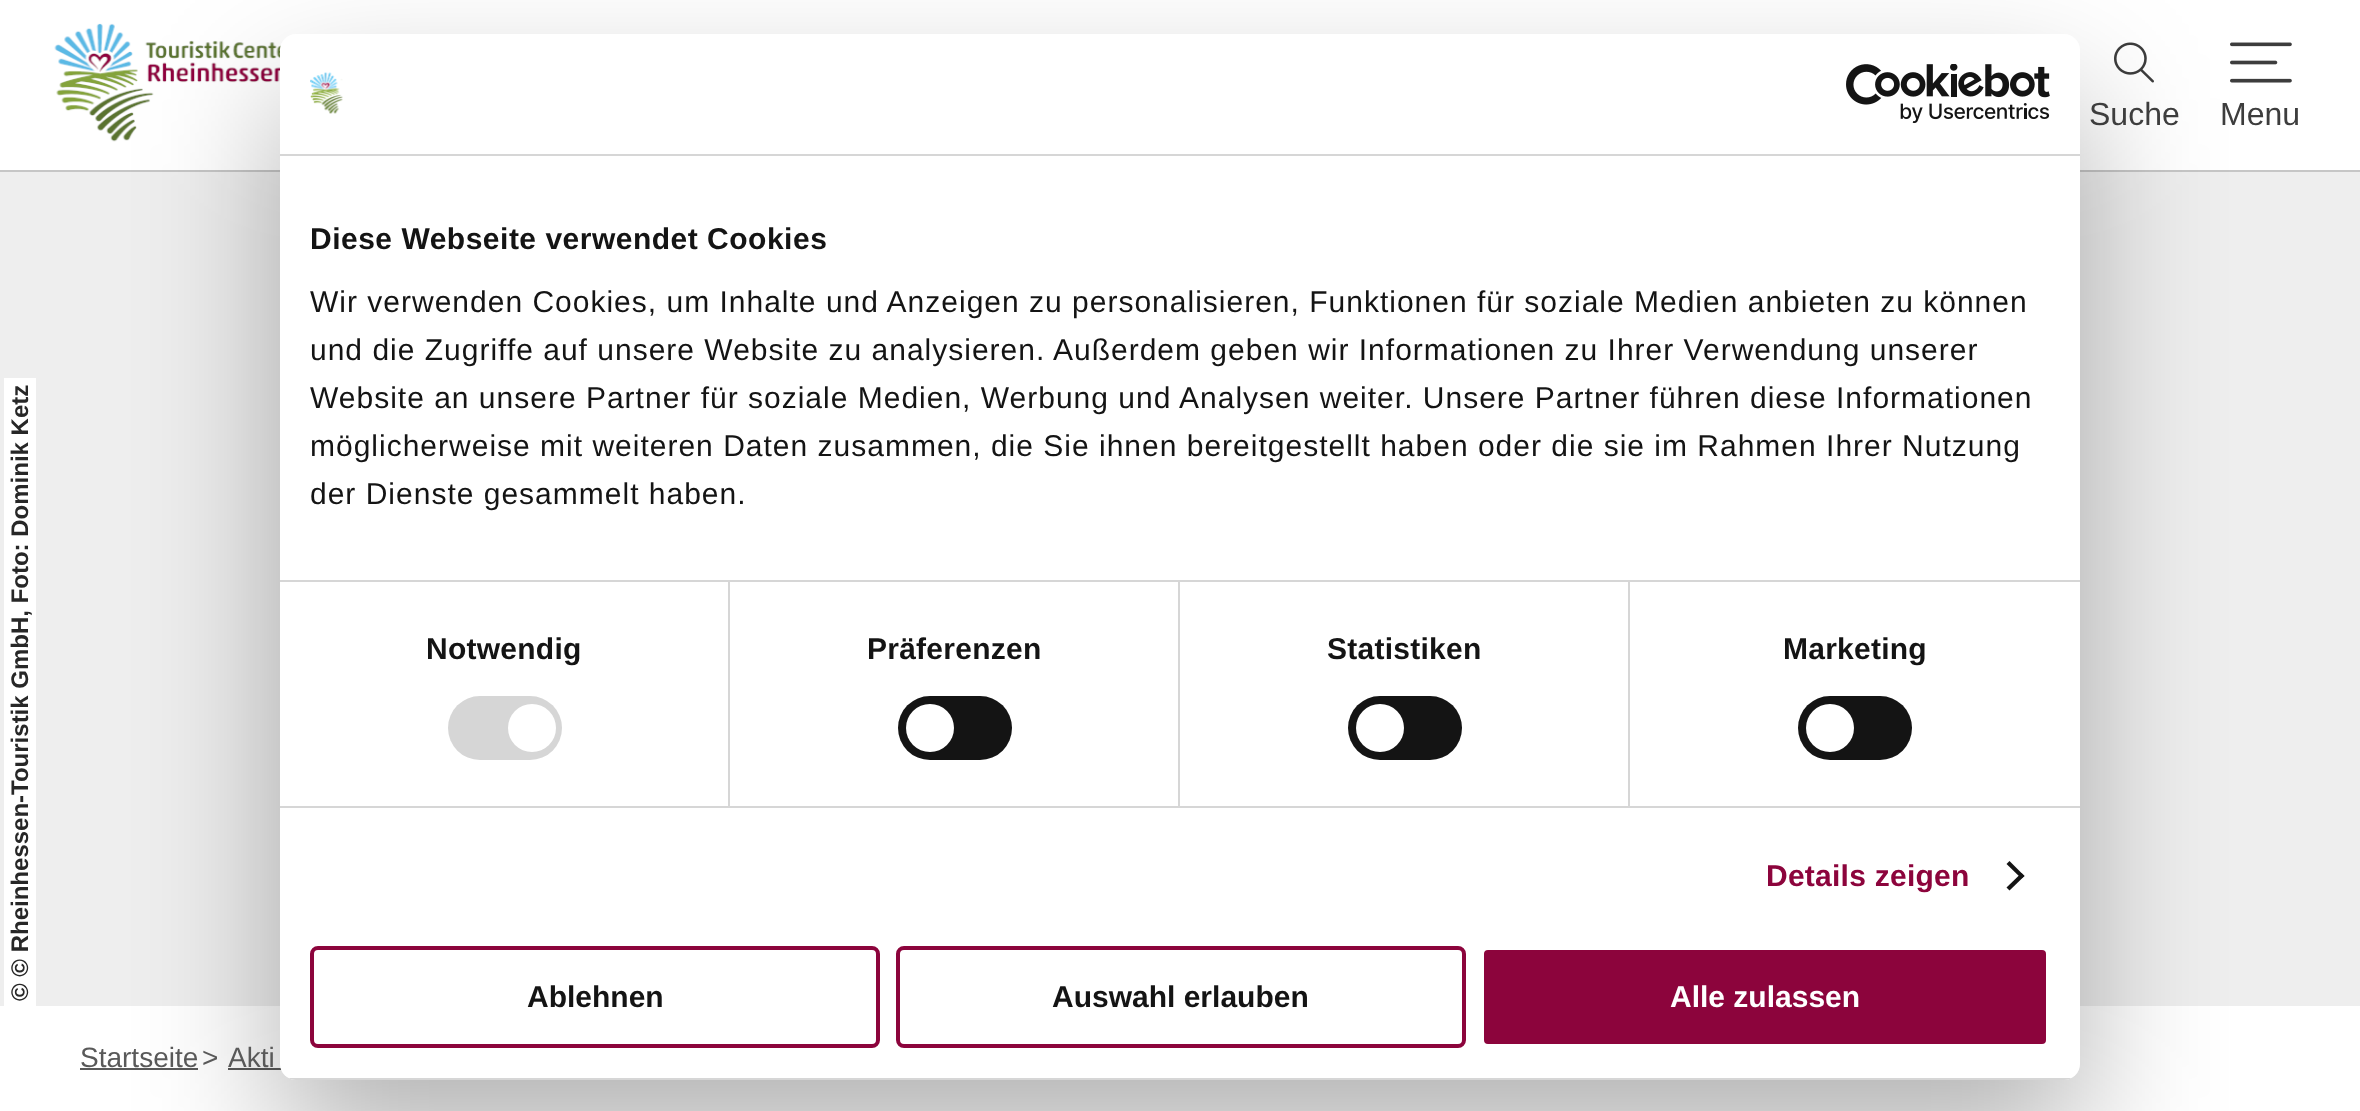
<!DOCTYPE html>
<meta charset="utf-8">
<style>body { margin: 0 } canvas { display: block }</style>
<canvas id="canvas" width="2360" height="1111"></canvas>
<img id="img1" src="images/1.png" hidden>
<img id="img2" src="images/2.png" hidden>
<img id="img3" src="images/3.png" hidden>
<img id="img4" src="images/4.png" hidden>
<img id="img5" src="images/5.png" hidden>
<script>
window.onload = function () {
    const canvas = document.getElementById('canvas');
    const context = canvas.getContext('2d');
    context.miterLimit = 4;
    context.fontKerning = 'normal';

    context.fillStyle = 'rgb(255, 255, 255)';
    context.fillRect(0, 0, 2360, 1111);
    context.fillStyle = 'rgb(198, 198, 198)';
    context.fillRect(0, 170, 2360, 2);
    context.drawImage(document.getElementById('img1'), 54, 23, 294, 119);
    context.drawImage(document.getElementById('img2'), 2114, 42, 40, 41);
    context.drawImage(document.getElementById('img3'), 2230, 42, 62, 41);
    context.fillStyle = 'rgb(238, 238, 238)';
    context.fillRect(0, 172, 2360, 834);
    context.fillStyle = 'rgb(255, 255, 255)';
    context.fillRect(4, 378, 32, 628);
    context.fillStyle = 'rgb(89, 89, 89)';
    context.fillRect(80, 1068, 118, 2);
    context.fillRect(228, 1068, 54, 2);
    context.fillStyle = 'rgba(0, 0, 0, 0.3)';
    context.filter = 'blur(68px)';
    context.beginPath();
    context.roundRect(280, 98, 1800, 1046, 16);
    context.fill();
    context.filter = 'none';
    context.fillStyle = 'rgb(255, 255, 255)';
    context.beginPath();
    context.roundRect(280, 34, 1800, 1046, 16);
    context.fill();
    context.fillStyle = 'rgb(214, 214, 214)';
    context.fillRect(280, 154, 1800, 2);
    context.drawImage(document.getElementById('img4'), 310, 72, 33, 42);
    context.drawImage(document.getElementById('img5'), 1846, 64, 204, 60);
    context.fillRect(280, 580, 1800, 2);
    context.fillRect(280, 806, 1800, 2);
    context.fillRect(728, 582, 2, 224);
    context.beginPath();
    context.roundRect(448, 696, 114, 64, 32);
    context.fill();
    context.fillStyle = 'rgb(255, 255, 255)';
    context.beginPath();
    context.arc(532, 728, 24, 0, 2 * Math.PI);
    context.fill();
    context.fillStyle = 'rgb(214, 214, 214)';
    context.fillRect(1178, 582, 2, 224);
    context.fillStyle = 'rgb(20, 20, 20)';
    context.beginPath();
    context.roundRect(898, 696, 114, 64, 32);
    context.fill();
    context.fillStyle = 'rgb(255, 255, 255)';
    context.beginPath();
    context.arc(930, 728, 24, 0, 2 * Math.PI);
    context.fill();
    context.fillStyle = 'rgb(214, 214, 214)';
    context.fillRect(1628, 582, 2, 224);
    context.fillStyle = 'rgb(20, 20, 20)';
    context.beginPath();
    context.roundRect(1348, 696, 114, 64, 32);
    context.fill();
    context.fillStyle = 'rgb(255, 255, 255)';
    context.beginPath();
    context.arc(1380, 728, 24, 0, 2 * Math.PI);
    context.fill();
    context.fillStyle = 'rgb(20, 20, 20)';
    context.beginPath();
    context.roundRect(1798, 696, 114, 64, 32);
    context.fill();
    context.fillStyle = 'rgb(255, 255, 255)';
    context.beginPath();
    context.arc(1830, 728, 24, 0, 2 * Math.PI);
    context.fill();
    context.fillStyle = 'rgb(20, 20, 20)';
    context.beginPath();
    context.moveTo(2009.5, 861);
    context.lineTo(2024.5, 876);
    context.lineTo(2021.5, 878.5);
    context.lineTo(2006.5, 864);
    context.closePath();
    context.fill();
    context.beginPath();
    context.moveTo(2021.5, 873);
    context.lineTo(2024.5, 876);
    context.lineTo(2009.5, 890.5);
    context.lineTo(2006.5, 887.5);
    context.closePath();
    context.fill();
    context.save();
    context.beginPath();
    context.roundRect(280, 34, 1800, 1046, 16);
    context.clip();
    context.fillStyle = 'rgb(214, 214, 214)';
    context.fillRect(280, 1078, 1800, 2);
    context.restore();
    context.beginPath();
    context.roundRect(312, 948, 566, 98, 6);
    context.strokeStyle = 'rgb(140, 4, 60)';
    context.lineWidth = 4;
    context.stroke();
    context.beginPath();
    context.roundRect(898, 948, 566, 98, 6);
    context.stroke();
    context.fillStyle = 'rgb(140, 4, 60)';
    context.beginPath();
    context.roundRect(1482, 948, 566, 98, 6);
    context.fill();
    context.strokeStyle = 'rgb(255, 255, 255)';
    context.stroke();
    context.font = '32px Liberation Sans';
    context.fillStyle = 'rgb(61, 61, 61)';
    context.fillText('Suche', 2089, 125);
    context.fillText('Menu', 2220, 125);
    context.font = 'bold 24px Liberation Sans';
    context.fillStyle = 'rgb(39, 39, 39)';
    context.save();
    context.translate(28, 1001);
    context.rotate(-90 * Math.PI / 180);
    context.fillText('© © Rheinhessen-Touristik GmbH, Foto: Dominik Ketz', 0, 0);
    context.restore();
    context.letterSpacing = '0.5px';
    context.font = 'bold 30px Liberation Sans';
    context.fillStyle = 'rgb(20, 20, 20)';
    context.fillText('Diese Webseite verwendet Cookies', 310, 249);
    context.letterSpacing = '1px';
    context.font = '30px Liberation Sans';
    context.fillText('Wir verwenden Cookies, um Inhalte und Anzeigen zu personalisieren, Funktionen für soziale Medien anbieten zu können', 310, 312);
    context.fillText('und die Zugriffe auf unsere Website zu analysieren. Außerdem geben wir Informationen zu Ihrer Verwendung unserer', 310, 360);
    context.fillText('Website an unsere Partner für soziale Medien, Werbung und Analysen weiter. Unsere Partner führen diese Informationen', 310, 408);
    context.fillText('möglicherweise mit weiteren Daten zusammen, die Sie ihnen bereitgestellt haben oder die sie im Rahmen Ihrer Nutzung', 310, 456);
    context.fillText('der Dienste gesammelt haben.', 310, 504);
    context.letterSpacing = '0.25px';
    context.font = 'bold 30px Liberation Sans';
    context.fillText('Notwendig', 426, 659);
    context.fillText('Präferenzen', 867, 659);
    context.fillText('Statistiken', 1327, 659);
    context.fillText('Marketing', 1783, 659);
    context.fillStyle = 'rgb(140, 4, 60)';
    context.fillText('Details zeigen', 1766, 886);
    context.letterSpacing = '0px';
    context.fillStyle = 'rgb(20, 20, 20)';
    context.fillText('Ablehnen', 527, 1007);
    context.fillText('Auswahl erlauben', 1052, 1007);
    context.fillStyle = 'rgb(255, 255, 255)';
    context.fillText('Alle zulassen', 1670, 1007);
    context.font = '28px Liberation Sans';
    context.fillStyle = 'rgb(89, 89, 89)';
    context.fillText('Startseite', 80, 1067);
    context.fillText('>', 202, 1067);
    context.fillText('Akti', 228, 1067);
};
</script>
